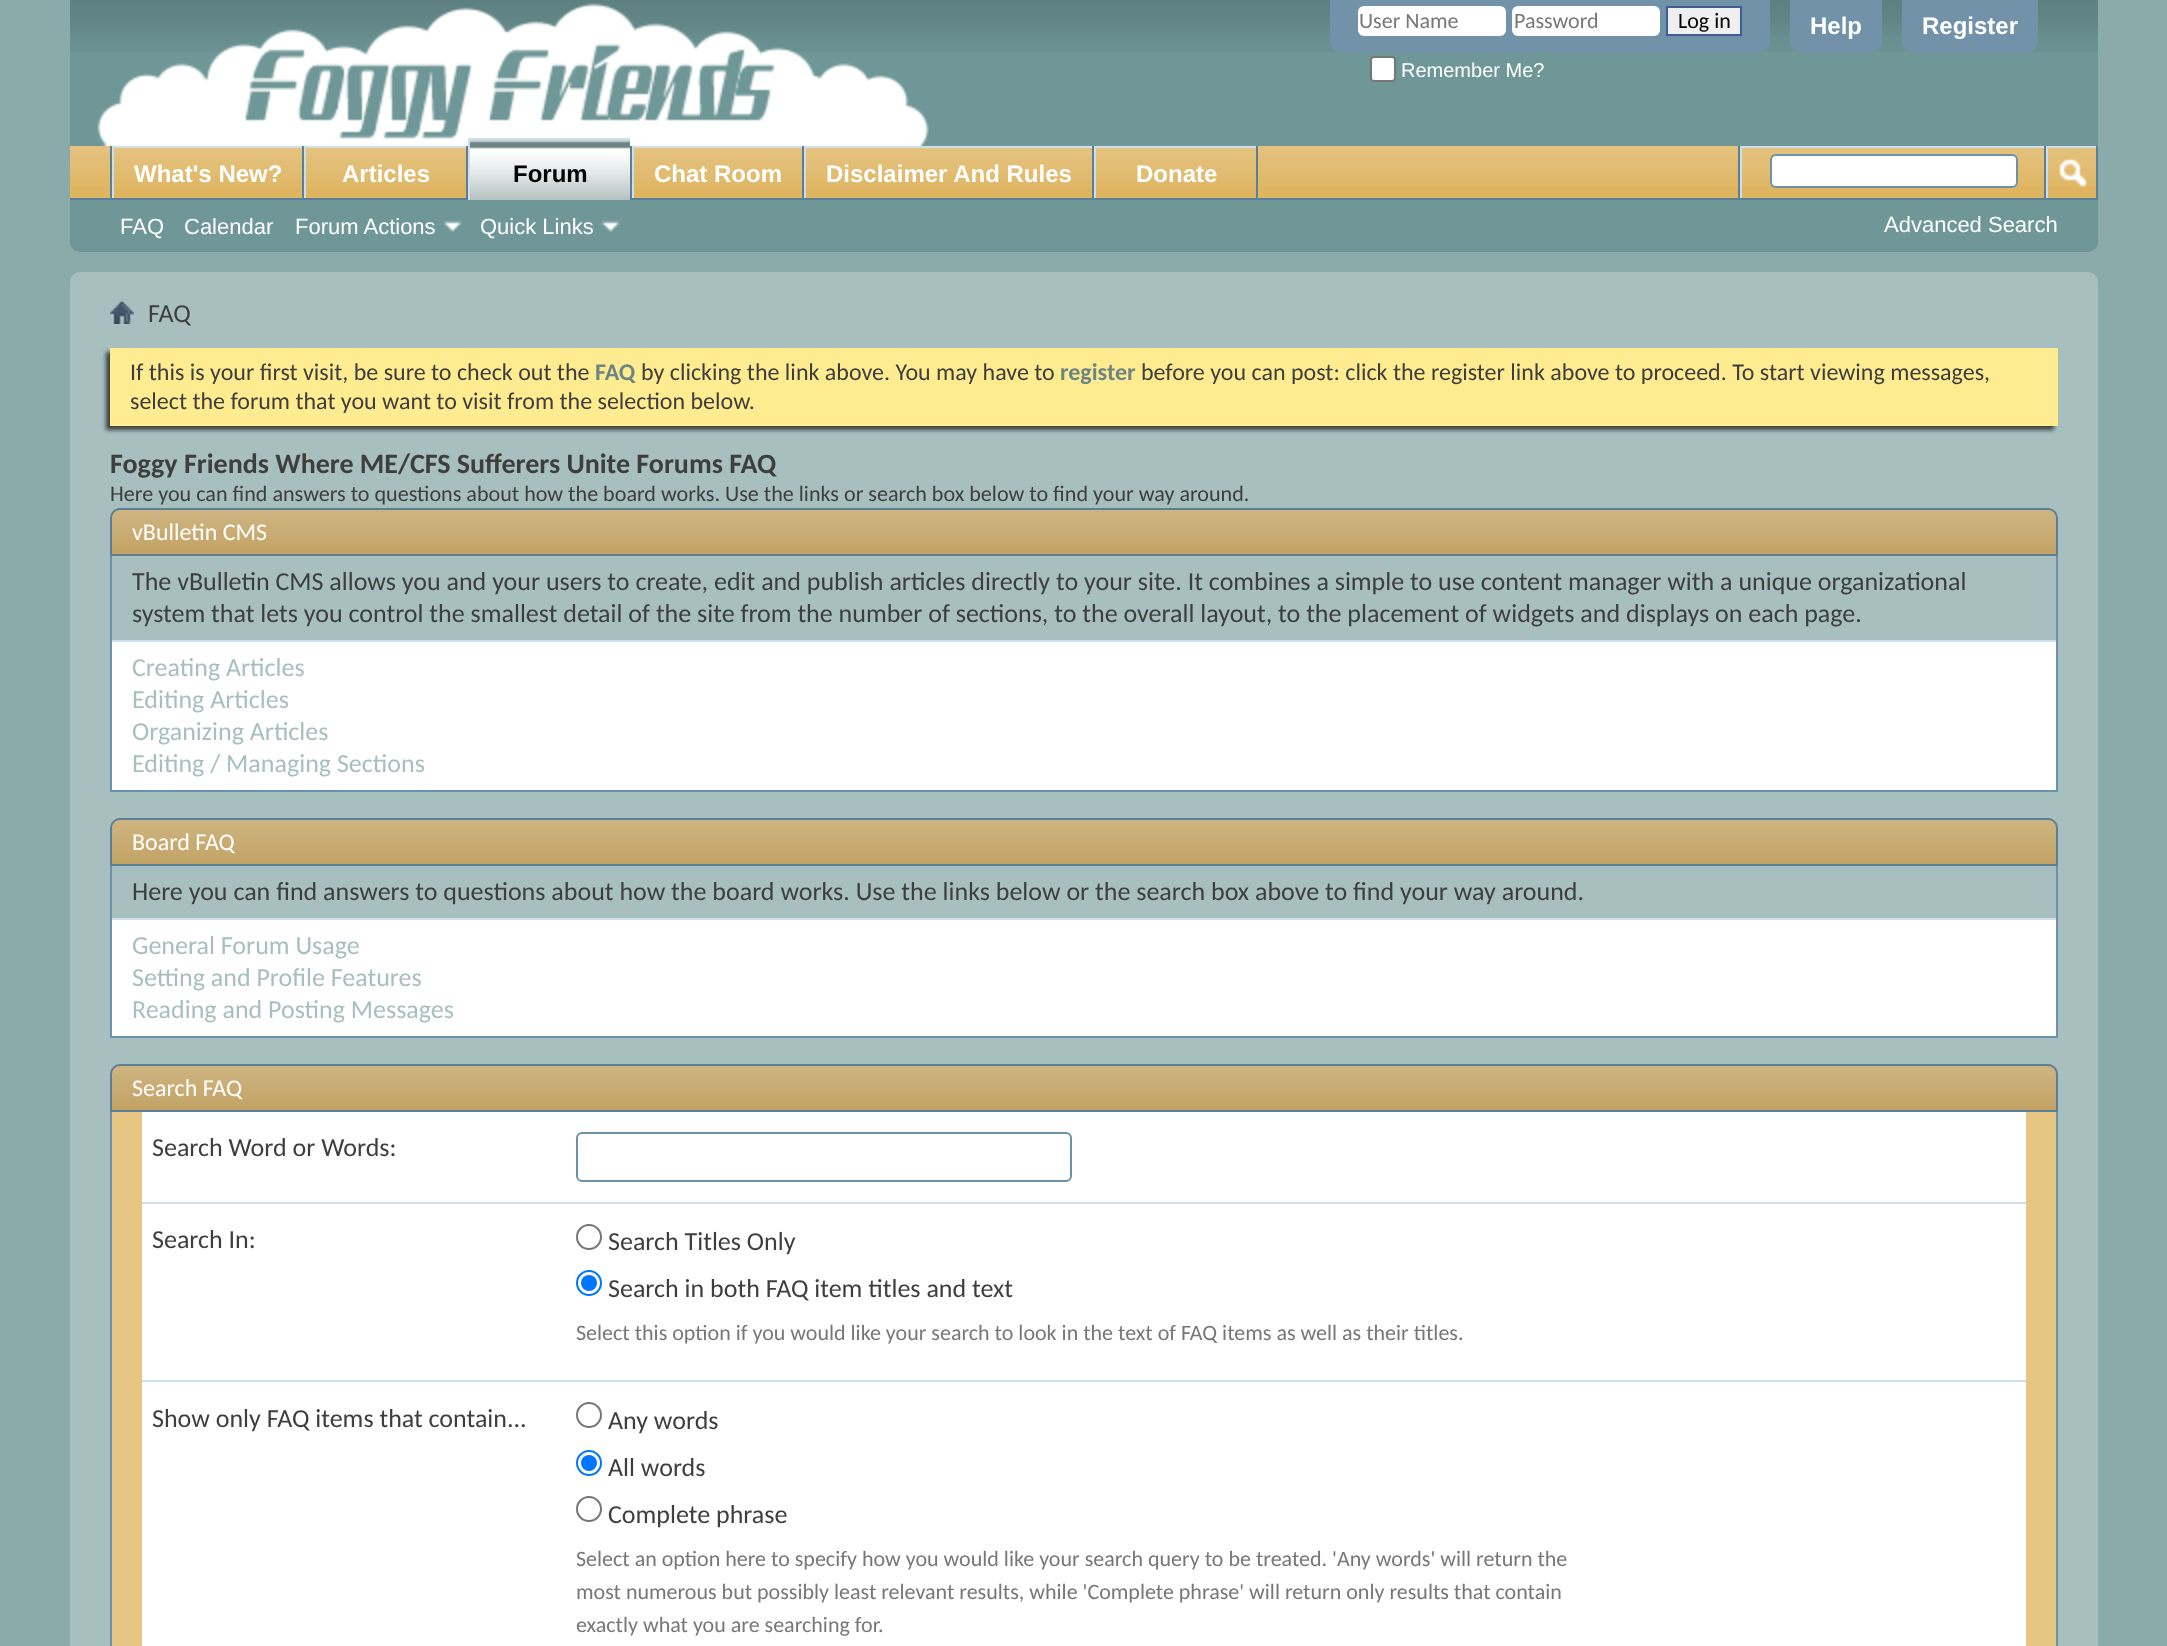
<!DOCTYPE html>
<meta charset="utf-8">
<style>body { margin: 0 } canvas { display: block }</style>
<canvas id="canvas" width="2167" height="1646"></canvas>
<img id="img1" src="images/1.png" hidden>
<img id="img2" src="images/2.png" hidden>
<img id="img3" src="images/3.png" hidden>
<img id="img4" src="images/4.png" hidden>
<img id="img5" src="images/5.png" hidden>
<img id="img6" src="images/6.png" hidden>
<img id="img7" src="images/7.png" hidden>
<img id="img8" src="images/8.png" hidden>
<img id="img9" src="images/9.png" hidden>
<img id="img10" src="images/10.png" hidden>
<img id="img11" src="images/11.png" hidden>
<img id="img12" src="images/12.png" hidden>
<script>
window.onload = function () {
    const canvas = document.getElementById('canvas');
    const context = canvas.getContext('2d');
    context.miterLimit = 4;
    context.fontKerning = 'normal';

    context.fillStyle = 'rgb(139, 171, 171)';
    context.fillRect(0, 0, 2167, 1646);
    context.fillStyle = 'rgb(111, 151, 151)';
    context.beginPath();
    context.roundRect(70, 0, 2028, 252, [0, 0, 10, 10]);
    context.fill();
    context.drawImage(document.getElementById('img1'), 70, 0, 2028, 52);
    context.drawImage(document.getElementById('img2'), 97, 3, 832, 143);
    context.fillStyle = 'rgb(113, 146, 168)';
    context.beginPath();
    context.roundRect(1330, 0, 440, 52, [0, 0, 10, 10]);
    context.fill();
    context.fillStyle = 'rgb(255, 255, 255)';
    context.beginPath();
    context.roundRect(1358, 6, 148, 30, 6);
    context.fill();
    context.beginPath();
    context.roundRect(1512, 6, 148, 30, 6);
    context.fill();
    context.fillStyle = 'rgb(239, 239, 239)';
    context.beginPath();
    context.rect(1667, 7, 74, 28);
    context.fill();
    context.strokeStyle = 'rgb(65, 93, 141)';
    context.lineWidth = 2;
    context.stroke();
    context.fillStyle = 'rgb(255, 255, 255)';
    context.beginPath();
    context.roundRect(1371, 57, 24, 24, 3);
    context.fill();
    context.strokeStyle = 'rgb(118, 118, 118)';
    context.stroke();
    context.fillStyle = 'rgb(113, 146, 168)';
    context.beginPath();
    context.roundRect(1790, 0, 92, 52, [0, 0, 10, 10]);
    context.fill();
    context.beginPath();
    context.roundRect(1902, 0, 136, 52, [0, 0, 10, 10]);
    context.fill();
    context.fillStyle = 'rgb(111, 151, 151)';
    context.beginPath();
    context.roundRect(70, 146, 2028, 106, [0, 0, 10, 10]);
    context.fill();
    context.fillStyle = 'rgb(223, 181, 98)';
    context.fillRect(70, 146, 2026, 52);
    context.drawImage(document.getElementById('img3'), 70, 146, 2026, 40);
    context.fillStyle = 'rgb(90, 127, 151)';
    context.fillRect(302, 146, 2, 54);
    context.fillRect(110, 146, 2, 54);
    context.fillStyle = 'rgb(223, 181, 98)';
    context.fillRect(114, 148, 188, 38);
    context.drawImage(document.getElementById('img4'), 114, 148, 188, 40);
    context.fillStyle = 'rgb(206, 223, 235)';
    context.fillRect(112, 146, 190, 2);
    context.fillRect(112, 146, 2, 54);
    context.fillStyle = 'rgb(90, 127, 151)';
    context.fillRect(466, 146, 2, 54);
    context.fillStyle = 'rgb(223, 181, 98)';
    context.fillRect(306, 148, 160, 38);
    context.drawImage(document.getElementById('img5'), 306, 148, 160, 40);
    context.fillStyle = 'rgb(206, 223, 235)';
    context.fillRect(304, 146, 162, 2);
    context.fillRect(304, 146, 2, 54);
    context.fillStyle = 'rgb(90, 127, 151)';
    context.fillRect(630, 146, 2, 52);
    context.fillRect(802, 146, 2, 54);
    context.fillStyle = 'rgb(206, 223, 235)';
    context.fillRect(632, 146, 170, 2);
    context.fillRect(632, 146, 2, 54);
    context.fillStyle = 'rgb(90, 127, 151)';
    context.fillRect(1092, 146, 2, 54);
    context.fillStyle = 'rgb(206, 223, 235)';
    context.fillRect(804, 146, 288, 2);
    context.fillRect(804, 146, 2, 54);
    context.fillStyle = 'rgb(90, 127, 151)';
    context.fillRect(1256, 146, 2, 54);
    context.fillStyle = 'rgb(206, 223, 235)';
    context.fillRect(1094, 146, 162, 2);
    context.fillRect(1094, 146, 2, 54);
    context.fillStyle = 'rgb(90, 127, 151)';
    context.fillRect(70, 198, 2028, 2);
    context.fillStyle = 'rgb(109, 133, 133)';
    context.fillRect(470, 140, 160, 60);
    context.drawImage(document.getElementById('img6'), 470, 140, 160, 60);
    context.fillStyle = 'rgb(206, 223, 235)';
    context.fillRect(468, 138, 162, 2);
    context.fillRect(468, 138, 2, 62);
    context.fillStyle = 'rgb(223, 181, 98)';
    context.fillRect(634, 148, 168, 38);
    context.drawImage(document.getElementById('img7'), 634, 148, 168, 40);
    context.fillRect(806, 148, 286, 38);
    context.drawImage(document.getElementById('img8'), 806, 148, 286, 40);
    context.fillRect(1096, 148, 160, 38);
    context.drawImage(document.getElementById('img5'), 1096, 148, 160, 40);
    context.drawImage(document.getElementById('img9'), 443, 220, 19, 12);
    context.drawImage(document.getElementById('img9'), 601, 220, 19, 12);
    context.fillStyle = 'rgb(90, 127, 151)';
    context.fillRect(1738, 146, 2, 52);
    context.fillStyle = 'rgb(206, 223, 235)';
    context.fillRect(1740, 146, 304, 2);
    context.fillRect(1740, 146, 2, 52);
    context.fillStyle = 'rgb(255, 255, 255)';
    context.beginPath();
    context.roundRect(1771, 155, 246, 32, 5);
    context.fill();
    context.strokeStyle = 'rgb(107, 145, 171)';
    context.stroke();
    context.fillStyle = 'rgb(90, 127, 151)';
    context.fillRect(2096, 146, 2, 52);
    context.fillRect(2044, 146, 2, 52);
    context.fillStyle = 'rgb(206, 223, 235)';
    context.fillRect(2046, 146, 50, 2);
    context.fillRect(2046, 146, 2, 52);
    context.drawImage(document.getElementById('img10'), 2059, 159, 28, 29);
    context.fillStyle = 'rgb(167, 191, 191)';
    context.beginPath();
    context.roundRect(70, 272, 2028, 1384, 10);
    context.fill();
    context.drawImage(document.getElementById('img11'), 110, 301, 24, 23);
    context.fillStyle = 'rgb(62, 62, 62)';
    context.filter = 'blur(2px)';
    context.beginPath();
    context.rect(106, 352, 1948, 78);
    context.fill();
    context.filter = 'none';
    context.fillStyle = 'rgb(255, 235, 144)';
    context.fillRect(110, 348, 1948, 78);
    context.fillStyle = 'rgb(195, 163, 100)';
    context.beginPath();
    context.roundRect(110, 508, 1948, 48, [10, 10, 0, 0]);
    context.fill();
    context.drawImage(document.getElementById('img12'), 110, 510, 1948, 40);
    context.beginPath();
    context.roundRect(111, 509, 1946, 46, [9, 9, 0, 0]);
    context.strokeStyle = 'rgb(90, 127, 151)';
    context.stroke();
    context.fillStyle = 'rgb(107, 145, 171)';
    context.fillRect(2056, 556, 2, 236);
    context.fillRect(110, 790, 1948, 2);
    context.fillRect(110, 556, 2, 236);
    context.fillStyle = 'rgb(255, 255, 255)';
    context.fillRect(112, 642, 1944, 148);
    context.fillStyle = 'rgb(206, 223, 235)';
    context.fillRect(112, 640, 1944, 2);
    context.fillStyle = 'rgb(195, 163, 100)';
    context.beginPath();
    context.roundRect(110, 818, 1948, 48, [10, 10, 0, 0]);
    context.fill();
    context.drawImage(document.getElementById('img12'), 110, 820, 1948, 40);
    context.beginPath();
    context.roundRect(111, 819, 1946, 46, [9, 9, 0, 0]);
    context.stroke();
    context.fillStyle = 'rgb(107, 145, 171)';
    context.fillRect(2056, 866, 2, 172);
    context.fillRect(110, 1036, 1948, 2);
    context.fillRect(110, 866, 2, 172);
    context.fillStyle = 'rgb(255, 255, 255)';
    context.fillRect(112, 920, 1944, 116);
    context.fillStyle = 'rgb(206, 223, 235)';
    context.fillRect(112, 918, 1944, 2);
    context.fillStyle = 'rgb(195, 163, 100)';
    context.beginPath();
    context.roundRect(110, 1064, 1948, 48, [10, 10, 0, 0]);
    context.fill();
    context.drawImage(document.getElementById('img12'), 110, 1066, 1948, 40);
    context.beginPath();
    context.roundRect(111, 1065, 1946, 46, [9, 9, 0, 0]);
    context.stroke();
    context.fillStyle = 'rgb(231, 198, 131)';
    context.fillRect(112, 1112, 1944, 534);
    context.fillStyle = 'rgb(107, 145, 171)';
    context.fillRect(2056, 1112, 2, 534);
    context.fillRect(110, 1112, 2, 534);
    context.fillStyle = 'rgb(255, 255, 255)';
    context.fillRect(142, 1112, 1884, 90);
    context.beginPath();
    context.roundRect(577, 1133, 494, 48, 5);
    context.strokeStyle = 'rgb(107, 145, 171)';
    context.stroke();
    context.fillRect(142, 1204, 1884, 176);
    context.fillStyle = 'rgb(206, 223, 235)';
    context.fillRect(142, 1202, 1884, 2);
    context.beginPath();
    context.arc(589, 1237, 12, 0, 2 * Math.PI);
    context.strokeStyle = 'rgb(118, 118, 118)';
    context.stroke();
    context.beginPath();
    context.arc(589, 1283, 12, 0, 2 * Math.PI);
    context.strokeStyle = 'rgb(0, 117, 255)';
    context.stroke();
    context.fillStyle = 'rgb(0, 117, 255)';
    context.beginPath();
    context.arc(589, 1283, 8, 0, 2 * Math.PI);
    context.fill();
    context.fillStyle = 'rgb(255, 255, 255)';
    context.fillRect(142, 1382, 1884, 264);
    context.fillStyle = 'rgb(206, 223, 235)';
    context.fillRect(142, 1380, 1884, 2);
    context.beginPath();
    context.arc(589, 1415, 12, 0, 2 * Math.PI);
    context.strokeStyle = 'rgb(118, 118, 118)';
    context.stroke();
    context.beginPath();
    context.arc(589, 1463, 12, 0, 2 * Math.PI);
    context.strokeStyle = 'rgb(0, 117, 255)';
    context.stroke();
    context.fillStyle = 'rgb(0, 117, 255)';
    context.beginPath();
    context.arc(589, 1463, 8, 0, 2 * Math.PI);
    context.fill();
    context.beginPath();
    context.arc(589, 1509, 12, 0, 2 * Math.PI);
    context.strokeStyle = 'rgb(118, 118, 118)';
    context.stroke();
    context.font = '22px Carlito';
    context.fillStyle = 'rgb(119, 119, 119)';
    context.fillText('User Name', 1359, 28);
    context.fillText('Password', 1514, 28);
    context.fillStyle = 'rgb(0, 0, 0)';
    context.fillText('Log in', 1678, 28);
    context.font = '20px Liberation Sans';
    context.fillStyle = 'rgb(255, 255, 255)';
    context.fillText('Remember Me?', 1401, 77);
    context.font = 'bold 24px Liberation Sans';
    context.fillText('Help', 1810, 34);
    context.fillText('Register', 1922, 34);
    context.fillText('What\'s New?', 134, 182);
    context.fillText('Articles', 342, 182);
    context.fillStyle = 'rgb(0, 0, 0)';
    context.fillText('Forum', 513, 182);
    context.fillStyle = 'rgb(255, 255, 255)';
    context.fillText('Chat Room', 654, 182);
    context.fillText('Disclaimer And Rules', 826, 182);
    context.fillText('Donate', 1136, 182);
    context.font = '22px Liberation Sans';
    context.fillText('FAQ', 120, 234);
    context.fillText('Calendar', 184, 234);
    context.fillText('Forum Actions', 295, 234);
    context.fillText('Quick Links', 480, 234);
    context.fillText('Advanced Search', 1884, 232);
    context.font = '26px Carlito';
    context.fillStyle = 'rgb(62, 62, 62)';
    context.fillText('FAQ', 148, 322);
    context.font = '24px Carlito';
    context.fillText('If this is your first visit, be sure to check out the', 130, 380);
    context.font = 'bold 24px Carlito';
    context.fillStyle = 'rgb(109, 133, 133)';
    context.fillText('FAQ', 595, 380);
    context.font = '24px Carlito';
    context.fillStyle = 'rgb(62, 62, 62)';
    context.fillText('by clicking the link above. You may have to', 641, 380);
    context.font = 'bold 24px Carlito';
    context.fillStyle = 'rgb(109, 133, 133)';
    context.fillText('register', 1060, 380);
    context.font = '24px Carlito';
    context.fillStyle = 'rgb(62, 62, 62)';
    context.fillText('before you can post: click the register link above to proceed. To start viewing messages,', 1141, 380);
    context.fillText('select the forum that you want to visit from the selection below.', 130, 409);
    context.font = 'bold 28px Carlito';
    context.fillText('Foggy Friends Where ME/CFS Sufferers Unite Forums FAQ', 110, 473);
    context.font = '22.1px Carlito';
    context.fillText('Here you can find answers to questions about how the board works. Use the links or search box below to find your way around.', 110, 501);
    context.font = '24px Carlito';
    context.fillStyle = 'rgb(255, 255, 255)';
    context.fillText('vBulletin CMS', 132, 540);
    context.font = '26px Carlito';
    context.fillStyle = 'rgb(62, 62, 62)';
    context.fillText('The vBulletin CMS allows you and your users to create, edit and publish articles directly to your site. It combines a simple to use content manager with a unique organizational', 132, 590);
    context.fillText('system that lets you control the smallest detail of the site from the number of sections, to the overall layout, to the placement of widgets and displays on each page.', 132, 622);
    context.fillStyle = 'rgb(167, 191, 191)';
    context.fillText('Creating Articles', 132, 676);
    context.fillText('Editing Articles', 132, 708);
    context.fillText('Organizing Articles', 132, 740);
    context.fillText('Editing / Managing Sections', 132, 772);
    context.font = '24px Carlito';
    context.fillStyle = 'rgb(255, 255, 255)';
    context.fillText('Board FAQ', 132, 850);
    context.font = '26px Carlito';
    context.fillStyle = 'rgb(62, 62, 62)';
    context.fillText('Here you can find answers to questions about how the board works. Use the links below or the search box above to find your way around.', 132, 900);
    context.fillStyle = 'rgb(167, 191, 191)';
    context.fillText('General Forum Usage', 132, 954);
    context.fillText('Setting and Profile Features', 132, 986);
    context.fillText('Reading and Posting Messages', 132, 1018);
    context.font = '24px Carlito';
    context.fillStyle = 'rgb(255, 255, 255)';
    context.fillText('Search FAQ', 132, 1096);
    context.font = '26px Carlito';
    context.fillStyle = 'rgb(62, 62, 62)';
    context.fillText('Search Word or Words:', 152, 1156);
    context.fillText('Search In:', 152, 1248);
    context.fillText('Search Titles Only', 608, 1250);
    context.fillText('Search in both FAQ item titles and text', 608, 1297);
    context.font = '22px Carlito';
    context.fillStyle = 'rgb(119, 119, 119)';
    context.fillText('Select this option if you would like your search to look in the text of FAQ items as well as their titles.', 576, 1340);
    context.font = '26px Carlito';
    context.fillStyle = 'rgb(62, 62, 62)';
    context.fillText('Show only FAQ items that contain...', 152, 1427);
    context.fillText('Any words', 608, 1429);
    context.fillText('All words', 608, 1476);
    context.fillText('Complete phrase', 608, 1523);
    context.font = '22px Carlito';
    context.fillStyle = 'rgb(119, 119, 119)';
    context.fillText('Select an option here to specify how you would like your search query to be treated. \'Any words\' will return the', 576, 1566);
    context.fillText('most numerous but possibly least relevant results, while \'Complete phrase\' will return only results that contain', 576, 1599);
    context.fillText('exactly what you are searching for.', 576, 1632);
};
</script>
